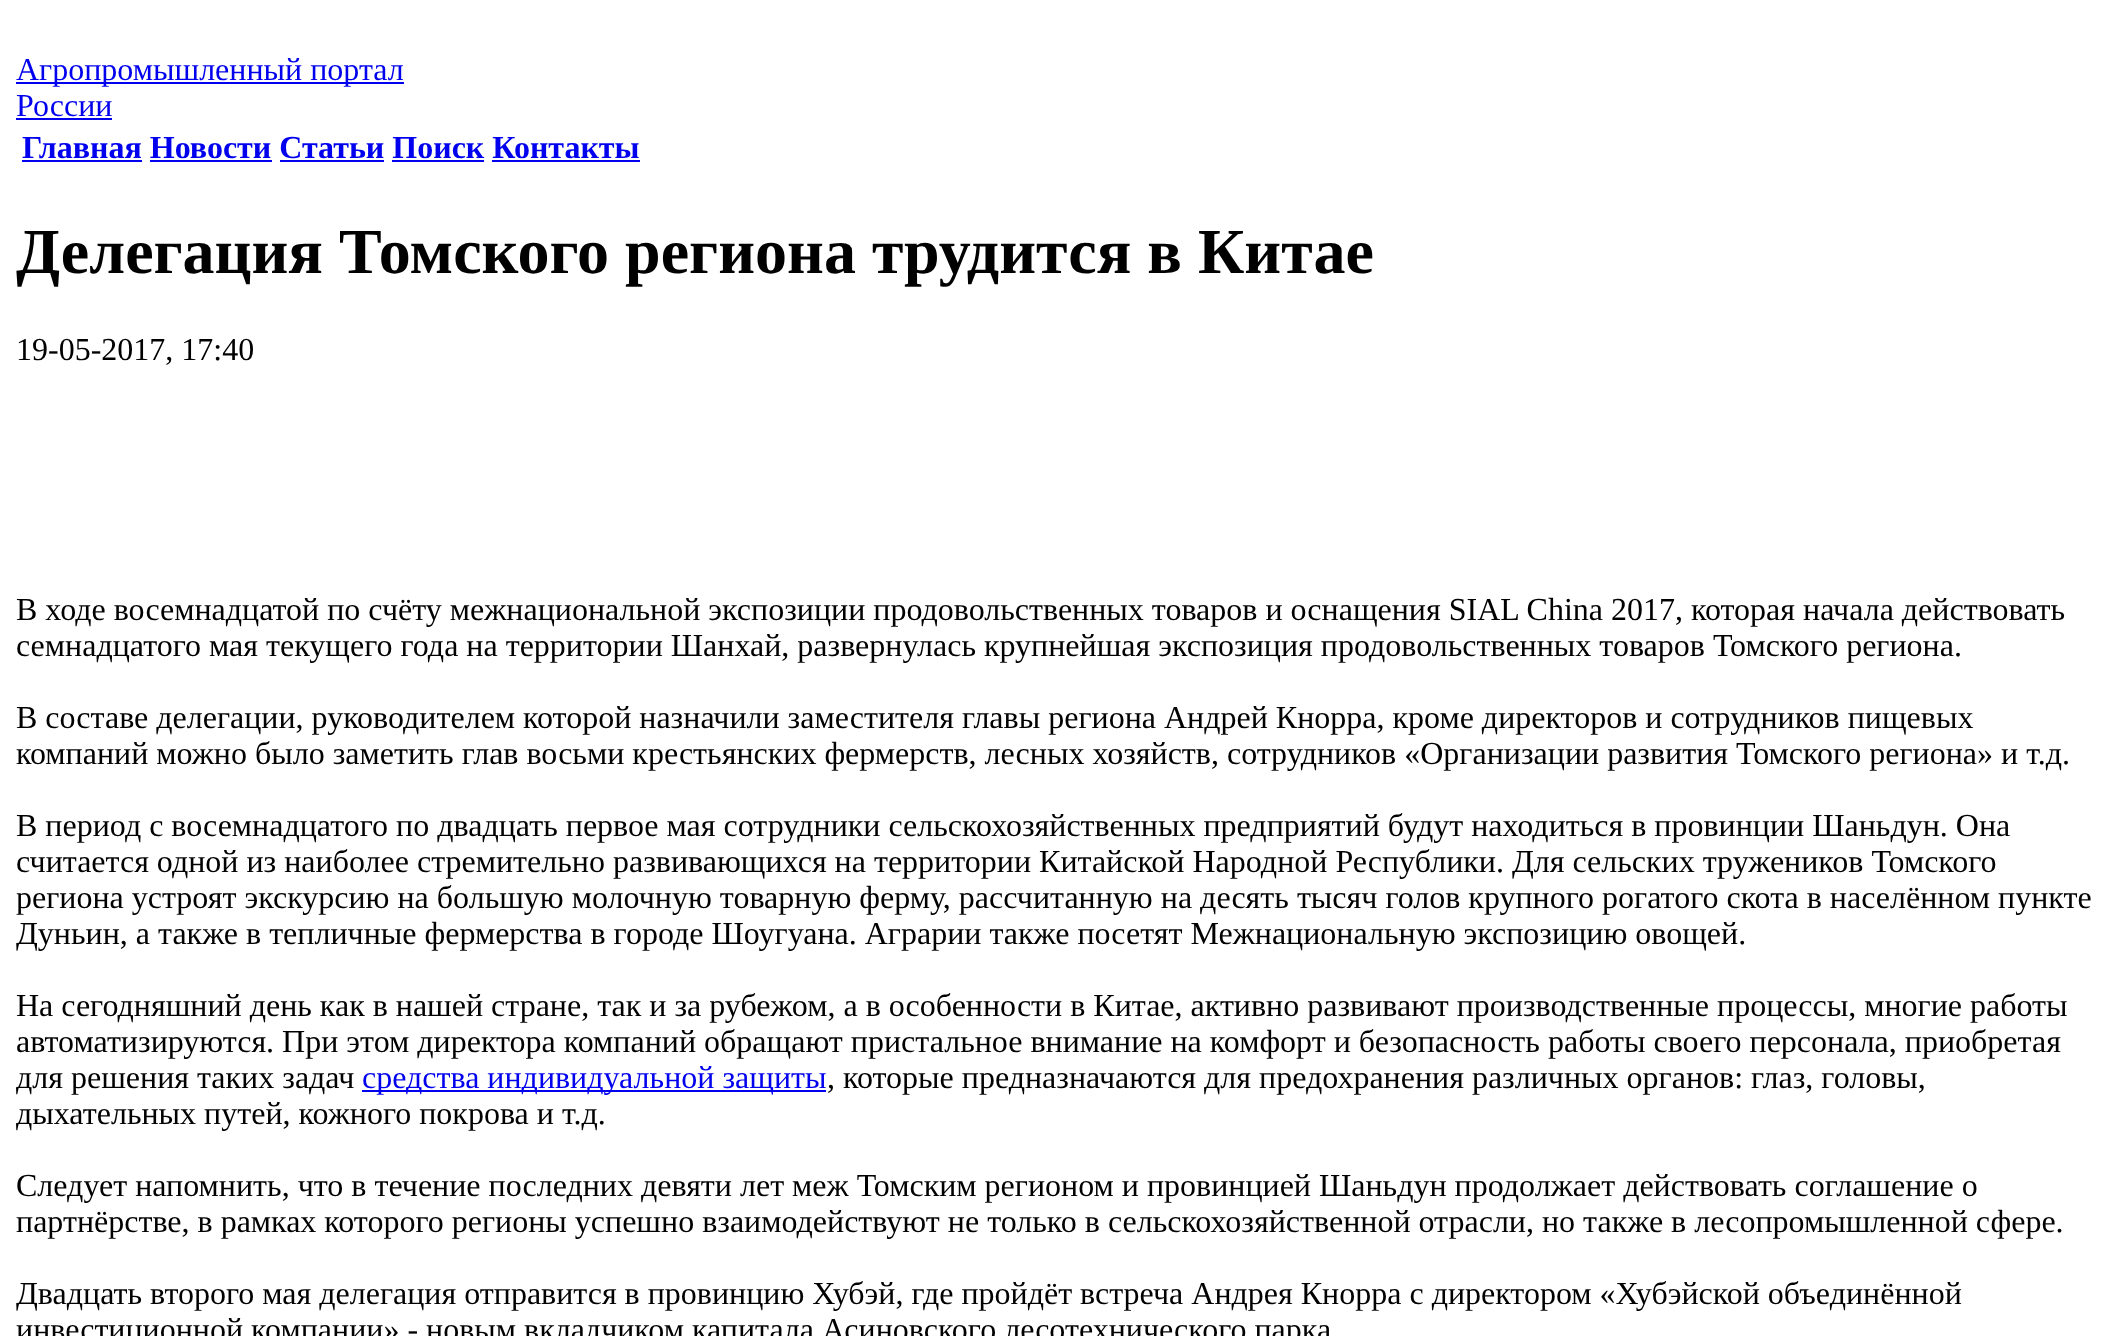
<!DOCTYPE html>
<meta charset="utf-8">
<style>body { margin: 0 } canvas { display: block }</style>
<canvas id="canvas" width="2128" height="1336"></canvas>
<script>
window.onload = function () {
    const canvas = document.getElementById('canvas');
    const context = canvas.getContext('2d');
    context.miterLimit = 4;
    context.fontKerning = 'normal';

    context.fillStyle = 'rgb(255, 255, 255)';
    context.fillRect(0, 0, 2128, 1336);
    context.fillStyle = 'rgb(0, 0, 238)';
    context.fillRect(16, 82, 388, 2);
    context.fillRect(16, 118, 96, 2);
    context.fillRect(22, 160, 120, 2);
    context.fillRect(150, 160, 122, 2);
    context.fillRect(280, 160, 104, 2);
    context.fillRect(392, 160, 92, 2);
    context.fillRect(492, 160, 148, 2);
    context.fillRect(362, 1090, 464, 2);
    context.font = '32px Liberation Serif';
    context.fillText('Агропромышленный портал', 16, 80);
    context.fillText('России', 16, 116);
    context.font = 'bold 32px Liberation Serif';
    context.fillText('Главная Новости Статьи Поиск Контакты', 22, 158);
    context.font = 'bold 64px Liberation Serif';
    context.fillStyle = 'rgb(0, 0, 0)';
    context.fillText('Делегация Томского региона трудится в Китае', 16, 273);
    context.font = '32px Liberation Serif';
    context.fillText('19-05-2017, 17:40', 16, 360);
    context.fillText('В ходе восемнадцатой по счёту межнациональной экспозиции продовольственных товаров и оснащения SIAL China 2017, которая начала действовать', 16, 620);
    context.fillText('семнадцатого мая текущего года на территории Шанхай, развернулась крупнейшая экспозиция продовольственных товаров Томского региона.', 16, 656);
    context.fillText('В составе делегации, руководителем которой назначили заместителя главы региона Андрей Кнорра, кроме директоров и сотрудников пищевых', 16, 728);
    context.fillText('компаний можно было заметить глав восьми крестьянских фермерств, лесных хозяйств, сотрудников «Организации развития Томского региона» и т.д.', 16, 764);
    context.fillText('В период с восемнадцатого по двадцать первое мая сотрудники сельскохозяйственных предприятий будут находиться в провинции Шаньдун. Она', 16, 836);
    context.fillText('считается одной из наиболее стремительно развивающихся на территории Китайской Народной Республики. Для сельских тружеников Томского', 16, 872);
    context.fillText('региона устроят экскурсию на большую молочную товарную ферму, рассчитанную на десять тысяч голов крупного рогатого скота в населённом пункте', 16, 908);
    context.fillText('Дуньин, а также в тепличные фермерства в городе Шоугуана. Аграрии также посетят Межнациональную экспозицию овощей.', 16, 944);
    context.fillText('На сегодняшний день как в нашей стране, так и за рубежом, а в особенности в Китае, активно развивают производственные процессы, многие работы', 16, 1016);
    context.fillText('автоматизируются. При этом директора компаний обращают пристальное внимание на комфорт и безопасность работы своего персонала, приобретая', 16, 1052);
    context.fillText('для решения таких задач', 16, 1088);
    context.fillStyle = 'rgb(0, 0, 238)';
    context.fillText('средства индивидуальной защиты', 362, 1088);
    context.fillStyle = 'rgb(0, 0, 0)';
    context.fillText(', которые предназначаются для предохранения различных органов: глаз, головы,', 827, 1088);
    context.fillText('дыхательных путей, кожного покрова и т.д.', 16, 1124);
    context.fillText('Следует напомнить, что в течение последних девяти лет меж Томским регионом и провинцией Шаньдун продолжает действовать соглашение о', 16, 1196);
    context.fillText('партнёрстве, в рамках которого регионы успешно взаимодействуют не только в сельскохозяйственной отрасли, но также в лесопромышленной сфере.', 16, 1232);
    context.fillText('Двадцать второго мая делегация отправится в провинцию Хубэй, где пройдёт встреча Андрея Кнорра с директором «Хубэйской объединённой', 16, 1304);
    context.fillText('инвестиционной компании» - новым вкладчиком капитала Асиновского лесотехнического парка', 16, 1340);
};
</script>
